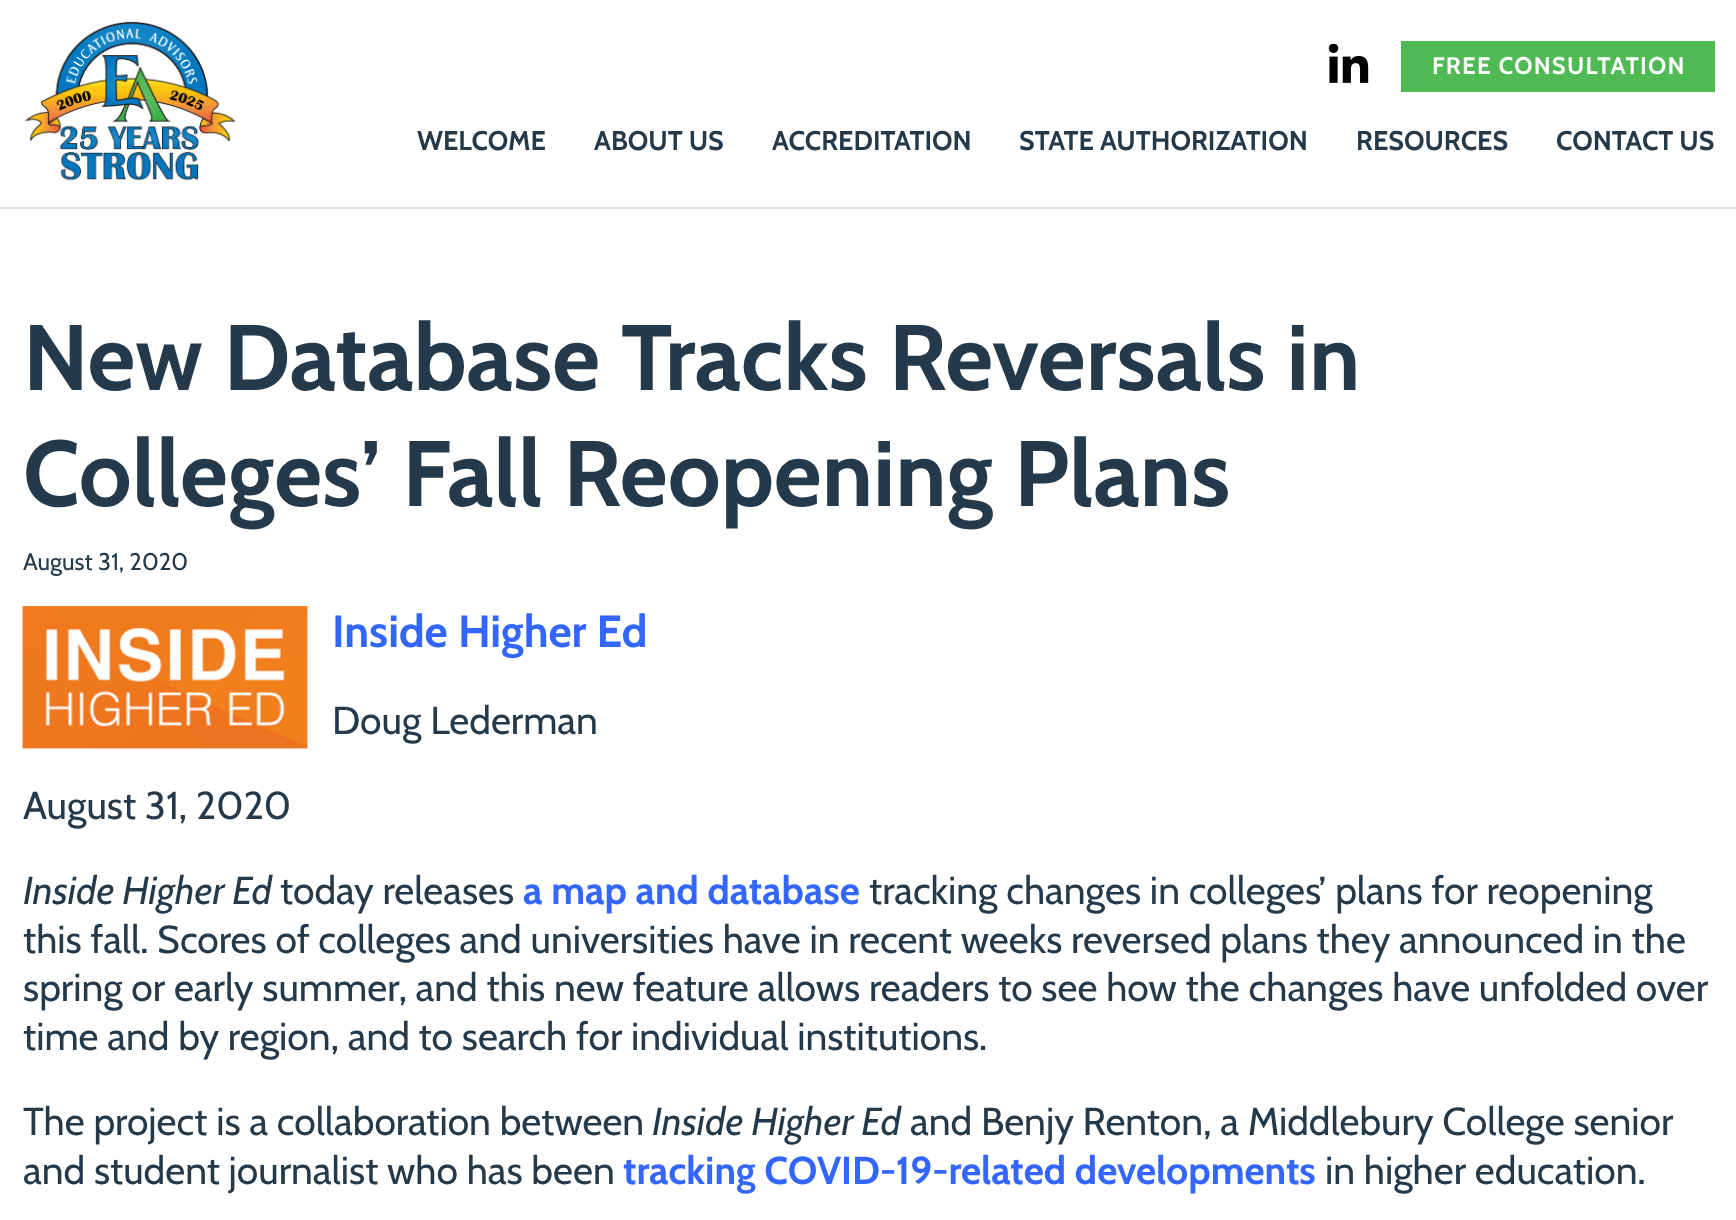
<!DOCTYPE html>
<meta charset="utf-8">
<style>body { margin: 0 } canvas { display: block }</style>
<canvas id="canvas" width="1736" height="1220"></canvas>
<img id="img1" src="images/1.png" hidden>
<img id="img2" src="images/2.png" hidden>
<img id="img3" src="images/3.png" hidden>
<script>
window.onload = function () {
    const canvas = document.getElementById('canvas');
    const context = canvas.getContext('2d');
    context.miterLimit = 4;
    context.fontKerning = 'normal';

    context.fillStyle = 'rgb(255, 255, 255)';
    context.fillRect(0, 0, 1736, 1220);
    context.fillStyle = 'rgb(229, 229, 229)';
    context.fillRect(0, 207, 1736, 2);
    context.drawImage(document.getElementById('img1'), 24, 21, 212, 160);
    context.drawImage(document.getElementById('img2'), 1328, 44, 41, 39);
    context.fillStyle = 'rgb(79, 185, 83)';
    context.fillRect(1401, 41, 314, 51);
    context.drawImage(document.getElementById('img3'), 22, 606, 286, 143);
    context.letterSpacing = '1.25px';
    context.font = 'bold 24px Cabin';
    context.fillStyle = 'rgb(255, 255, 255)';
    context.fillText('FREE CONSULTATION', 1432, 74);
    context.letterSpacing = '0px';
    context.font = 'bold 27px Cabin';
    context.fillStyle = 'rgb(36, 57, 74)';
    context.fillText('WELCOME', 417, 150);
    context.fillText('ABOUT US', 594, 150);
    context.fillText('ACCREDITATION', 772, 150);
    context.fillText('STATE AUTHORIZATION', 1019, 150);
    context.fillText('RESOURCES', 1356, 150);
    context.fillText('CONTACT US', 1556, 150);
    context.font = 'bold 93px Cabin';
    context.fillText('New Database Tracks Reversals in', 23, 390);
    context.fillText('Colleges’ Fall Reopening Plans', 23, 506);
    context.font = '24px Cabin';
    context.fillText('August 31, 2020', 23, 570);
    context.font = 'bold 45px Cabin';
    context.fillStyle = 'rgb(51, 102, 255)';
    context.fillText('Inside Higher Ed', 332, 647);
    context.font = '39px Cabin';
    context.fillStyle = 'rgb(36, 57, 74)';
    context.fillText('Doug Lederman', 332, 734);
    context.fillText('August 31, 2020', 23, 819);
    context.font = 'italic 39px Cabin';
    context.fillText('Inside Higher Ed', 23, 904);
    context.font = '39px Cabin';
    context.fillText('today releases', 280, 904);
    context.font = 'bold 39px Cabin';
    context.fillStyle = 'rgb(51, 102, 255)';
    context.fillText('a map and database', 523, 904);
    context.font = '39px Cabin';
    context.fillStyle = 'rgb(36, 57, 74)';
    context.fillText('tracking changes in colleges’ plans for reopening', 869, 904);
    context.fillText('this fall. Scores of colleges and universities have in recent weeks reversed plans they announced in the', 23, 953);
    context.fillText('spring or early summer, and this new feature allows readers to see how the changes have unfolded over', 23, 1001);
    context.fillText('time and by region, and to search for individual institutions.', 23, 1050);
    context.fillText('The project is a collaboration between', 23, 1135);
    context.font = 'italic 39px Cabin';
    context.fillText('Inside Higher Ed', 652, 1135);
    context.font = '39px Cabin';
    context.fillText('and Benjy Renton, a Middlebury College senior', 910, 1135);
    context.fillText('and student journalist who has been', 23, 1184);
    context.font = 'bold 39px Cabin';
    context.fillStyle = 'rgb(51, 102, 255)';
    context.fillText('tracking COVID-19-related developments', 623, 1184);
    context.font = '39px Cabin';
    context.fillStyle = 'rgb(36, 57, 74)';
    context.fillText('in higher education.', 1325, 1184);
};
</script>
